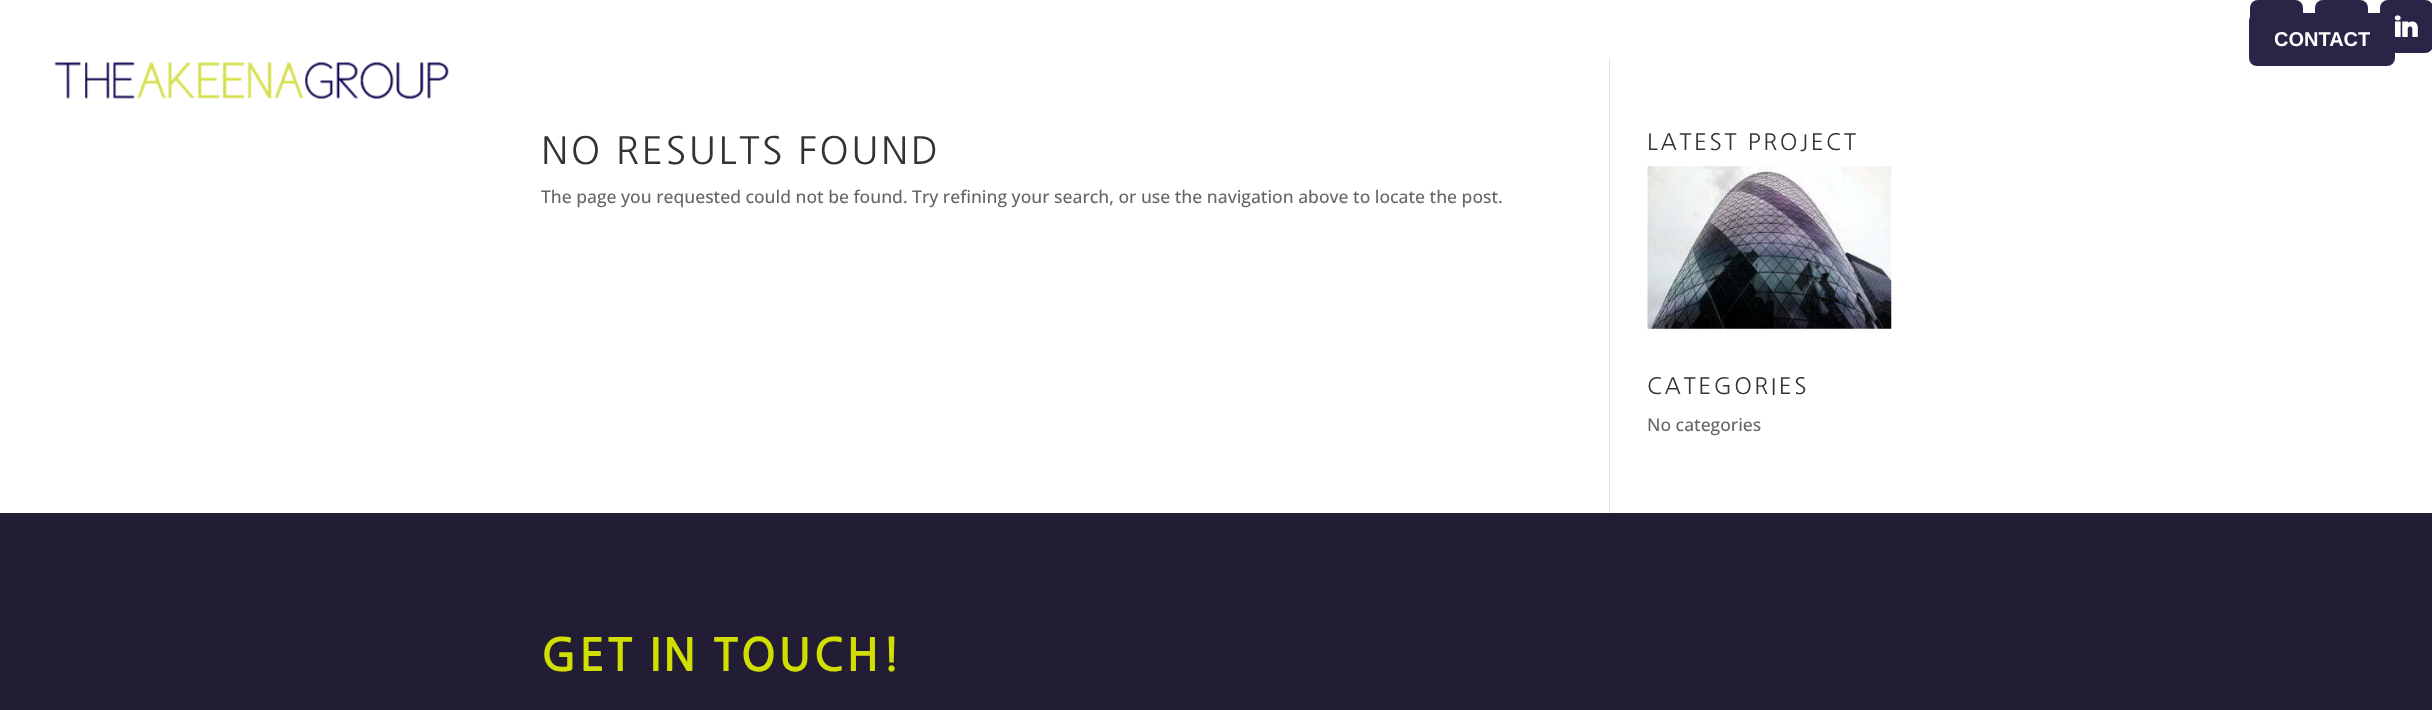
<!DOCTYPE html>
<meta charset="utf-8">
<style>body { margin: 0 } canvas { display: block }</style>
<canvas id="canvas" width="2432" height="710"></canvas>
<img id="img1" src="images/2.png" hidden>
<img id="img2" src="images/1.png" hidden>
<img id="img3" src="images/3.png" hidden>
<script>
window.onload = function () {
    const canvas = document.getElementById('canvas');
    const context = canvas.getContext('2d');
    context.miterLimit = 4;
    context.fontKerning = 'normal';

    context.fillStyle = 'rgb(255, 255, 255)';
    context.fillRect(0, 0, 2432, 710);
    context.fillStyle = 'rgb(44, 36, 71)';
    context.beginPath();
    context.roundRect(2250, 0, 53, 53, 8);
    context.fill();
    context.beginPath();
    context.roundRect(2315, 0, 53, 53, 8);
    context.fill();
    context.beginPath();
    context.roundRect(2380, 0, 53, 53, 8);
    context.fill();
    context.drawImage(document.getElementById('img1'), 2394, 15, 24, 22);
    context.beginPath();
    context.roundRect(2249, 13, 146, 53, 8);
    context.fill();
    context.drawImage(document.getElementById('img2'), 54, 61, 395, 39);
    context.fillStyle = 'rgb(226, 226, 226)';
    context.fillRect(1609, 59, 1, 454);
    context.drawImage(document.getElementById('img3'), 1647, 166, 245, 163);
    context.fillStyle = 'rgb(34, 28, 53)';
    context.fillRect(0, 513, 2432, 197);
    context.font = 'bold 20px Liberation Sans';
    context.fillStyle = 'rgb(255, 255, 255)';
    context.fillText('CONTACT', 2274, 46);
    context.letterSpacing = '2.5px';
    context.font = '37.5px NanumGothic';
    context.fillStyle = 'rgb(51, 51, 51)';
    context.fillText('NO RESULTS FOUND', 541, 164);
    context.letterSpacing = '0px';
    context.font = '500 17.5px Open Sans';
    context.fillStyle = 'rgb(102, 102, 102)';
    context.fillText('The page you requested could not be found. Try refining your search, or use the navigation above to locate the post.', 541, 203);
    context.letterSpacing = '2.5px';
    context.font = '22.5px NanumGothic';
    context.fillStyle = 'rgb(51, 51, 51)';
    context.fillText('LATEST PROJECT', 1647, 150);
    context.fillText('CATEGORIES', 1647, 394);
    context.letterSpacing = '0px';
    context.font = '500 17.5px Open Sans';
    context.fillStyle = 'rgb(102, 102, 102)';
    context.fillText('No categories', 1647, 431);
    context.letterSpacing = '2.5px';
    context.font = 'bold 45px NanumGothic';
    context.fillStyle = 'rgb(208, 223, 0)';
    context.fillText('GET IN TOUCH!', 541, 671);
};
</script>
